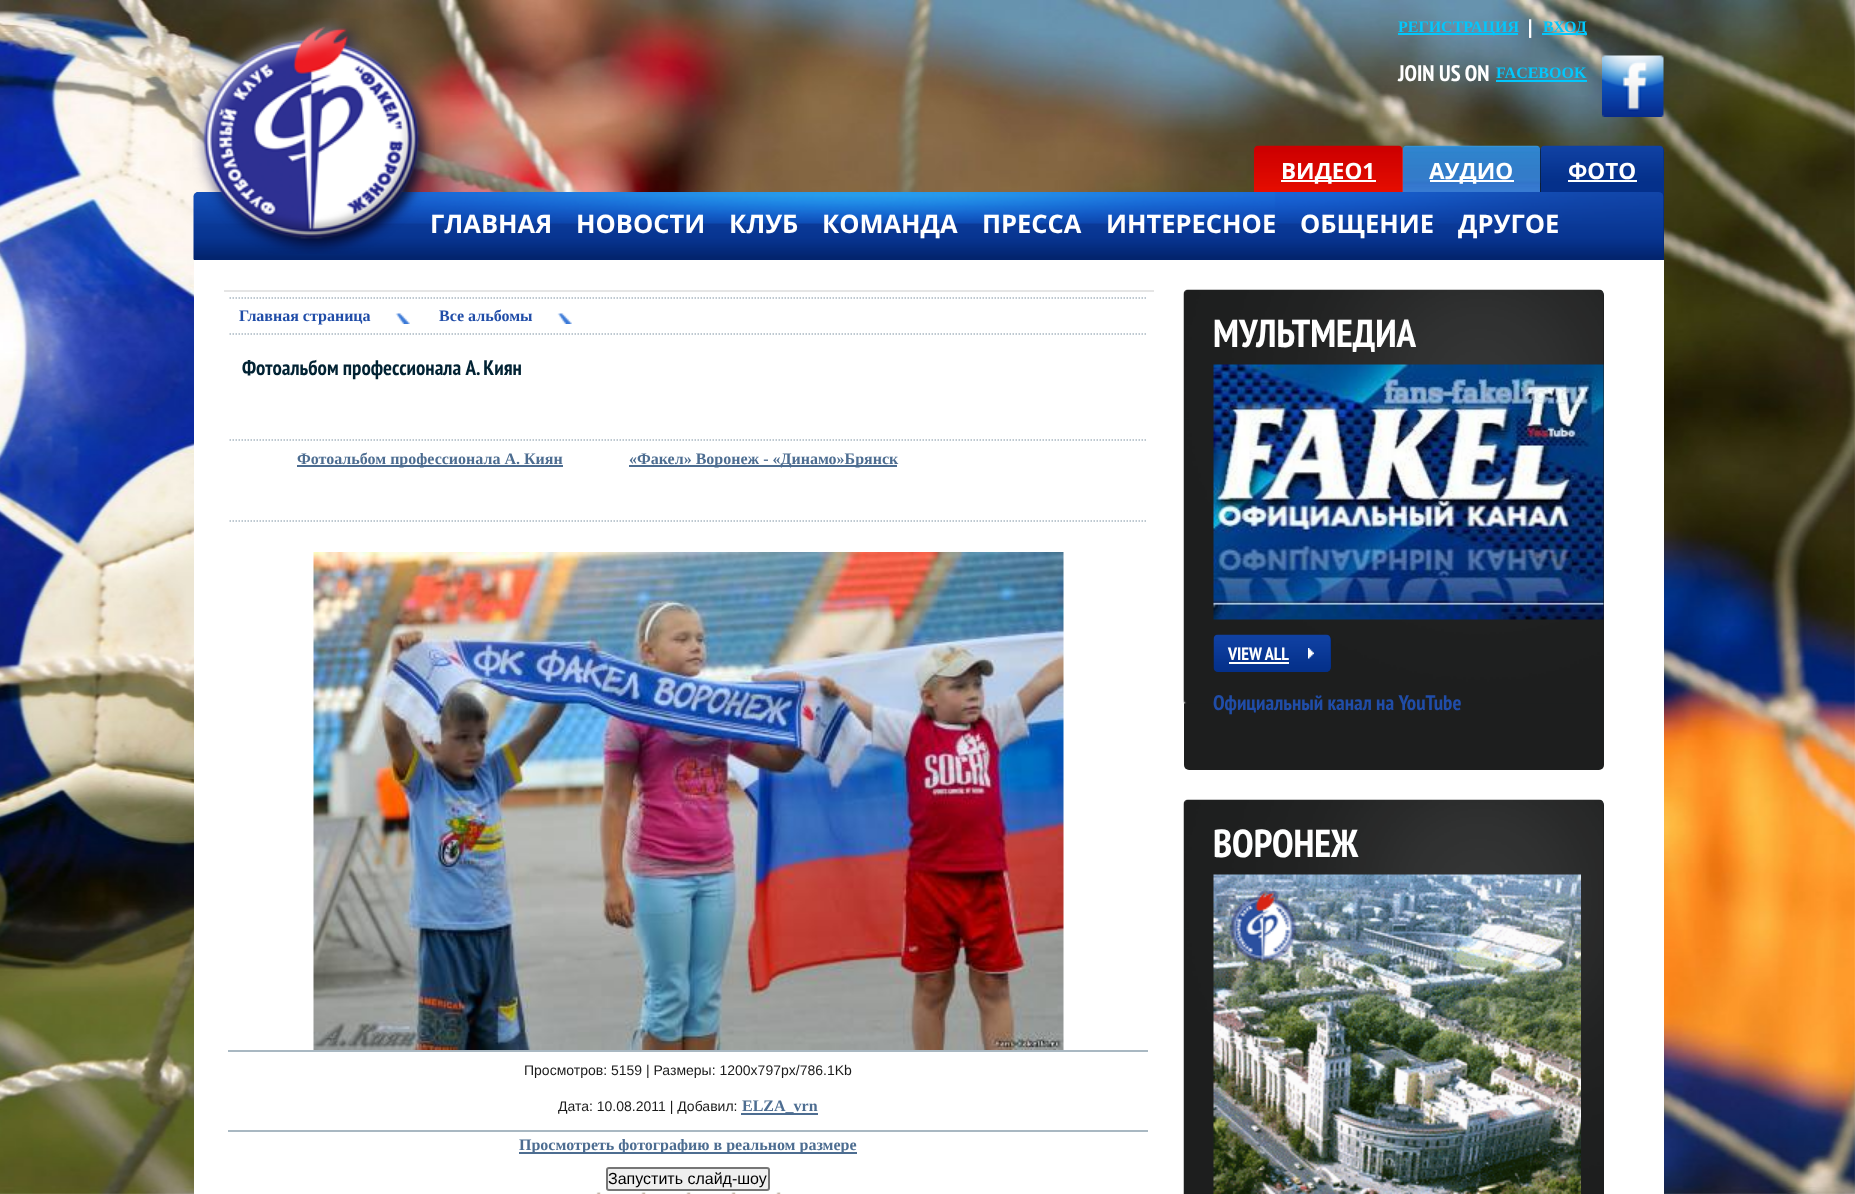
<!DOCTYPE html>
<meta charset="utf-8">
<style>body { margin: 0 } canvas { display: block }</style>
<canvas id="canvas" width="1855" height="1194"></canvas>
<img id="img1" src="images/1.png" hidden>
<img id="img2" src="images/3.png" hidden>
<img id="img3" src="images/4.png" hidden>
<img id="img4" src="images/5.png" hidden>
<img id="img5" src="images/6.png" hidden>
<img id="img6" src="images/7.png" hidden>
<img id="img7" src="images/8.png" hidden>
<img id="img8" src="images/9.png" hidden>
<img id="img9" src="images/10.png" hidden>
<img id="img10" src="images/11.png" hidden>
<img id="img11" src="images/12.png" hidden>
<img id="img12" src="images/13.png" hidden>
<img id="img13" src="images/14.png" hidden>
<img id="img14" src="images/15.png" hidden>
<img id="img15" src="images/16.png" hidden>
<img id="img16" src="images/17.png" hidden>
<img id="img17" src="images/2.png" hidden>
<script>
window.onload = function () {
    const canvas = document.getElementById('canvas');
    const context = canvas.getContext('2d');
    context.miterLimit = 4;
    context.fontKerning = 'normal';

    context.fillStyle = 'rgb(255, 255, 255)';
    context.fillRect(0, 0, 1855, 1194);
    context.drawImage(document.getElementById('img1'), 0, 0, 1855, 1194);
    context.fillStyle = 'rgb(3, 199, 252)';
    context.fillRect(1398, 33, 120, 2);
    context.fillRect(1542, 33, 45, 2);
    context.fillRect(1496, 80, 91, 2);
    context.drawImage(document.getElementById('img2'), 1602, 55, 62, 62);
    context.fillStyle = 'rgb(254, 26, 0)';
    context.beginPath();
    context.roundRect(1254, 146, 149, 55, [5, 5, 0, 0]);
    context.fill();
    context.drawImage(document.getElementById('img3'), 1254, 145, 149, 47);
    context.fillStyle = 'rgb(255, 255, 255)';
    context.fillRect(1281, 180, 95, 2);
    context.fillStyle = 'rgb(0, 0, 0)';
    context.beginPath();
    context.roundRect(1403, 146, 138, 55, [5, 5, 0, 0]);
    context.fill();
    context.drawImage(document.getElementById('img4'), 1402, 145, 139, 47);
    context.fillStyle = 'rgb(255, 255, 255)';
    context.fillRect(1430, 180, 84, 2);
    context.fillStyle = 'rgb(4, 48, 139)';
    context.beginPath();
    context.roundRect(1541, 146, 123, 55, [5, 5, 0, 0]);
    context.fill();
    context.drawImage(document.getElementById('img5'), 1540, 145, 124, 38);
    context.fillStyle = 'rgb(255, 255, 255)';
    context.fillRect(1568, 180, 69, 2);
    context.fillStyle = 'rgb(3, 37, 111)';
    context.beginPath();
    context.roundRect(194, 192, 1470, 68, [5, 5, 0, 0]);
    context.fill();
    context.drawImage(document.getElementById('img6'), 193, 192, 1471, 68);
    context.fillStyle = 'rgb(255, 255, 255)';
    context.fillRect(194, 260, 1470, 934);
    context.fillStyle = 'rgb(229, 229, 229)';
    context.fillRect(224, 290, 930, 2);
    context.beginPath();
    context.moveTo(229.5, 298);
    context.lineTo(1147.5, 298);
    context.strokeStyle = 'rgb(169, 184, 194)';
    context.lineWidth = 1.5;
    context.setLineDash([1.5, 1.5]);
    context.stroke();
    context.beginPath();
    context.moveTo(229.5, 334);
    context.lineTo(1147.5, 334);
    context.stroke();
    context.drawImage(document.getElementById('img7'), 395, 313, 15, 11);
    context.drawImage(document.getElementById('img7'), 557, 313, 15, 11);
    context.beginPath();
    context.moveTo(229.5, 440);
    context.lineTo(1147.5, 440);
    context.stroke();
    context.beginPath();
    context.moveTo(229.5, 521);
    context.lineTo(1147.5, 521);
    context.stroke();
    context.fillStyle = 'rgb(77, 109, 145)';
    context.fillRect(297, 465, 266, 2);
    context.fillRect(629, 465, 268, 2);
    context.drawImage(document.getElementById('img8'), 313, 552, 751, 498);
    context.fillStyle = 'rgb(169, 184, 194)';
    context.fillRect(228, 1050, 920, 2);
    context.fillRect(228, 1130, 920, 2);
    context.fillStyle = 'rgb(77, 109, 145)';
    context.fillRect(741, 1113, 77, 2);
    context.fillRect(519, 1152, 338, 2);
    context.fillStyle = 'rgb(239, 239, 239)';
    context.beginPath();
    context.roundRect(607, 1168, 162, 22, 2);
    context.fill();
    context.strokeStyle = 'rgb(118, 118, 118)';
    context.lineWidth = 2;
    context.setLineDash([]);
    context.stroke();
    context.drawImage(document.getElementById('img9'), 597, 1192, 184, 2);
    context.drawImage(document.getElementById('img10'), 596, 1192, 185, 2);
    context.fillStyle = 'rgb(29, 30, 30)';
    context.beginPath();
    context.roundRect(1184, 290, 420, 480, 5);
    context.fill();
    context.drawImage(document.getElementById('img11'), 1183, 289, 421, 415);
    context.drawImage(document.getElementById('img12'), 1213, 364, 391, 256);
    context.fillStyle = 'rgb(4, 48, 139)';
    context.beginPath();
    context.roundRect(1214, 635, 117, 37, 5);
    context.fill();
    context.drawImage(document.getElementById('img13'), 1213, 634, 118, 38);
    context.fillStyle = 'rgb(255, 255, 255)';
    context.fillRect(1229, 662, 60, 2);
    context.drawImage(document.getElementById('img14'), 1308, 648, 6, 11);
    context.fillStyle = 'rgb(29, 30, 30)';
    context.beginPath();
    context.roundRect(1184, 800, 420, 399, 5);
    context.fill();
    context.drawImage(document.getElementById('img15'), 1183, 799, 421, 395);
    context.drawImage(document.getElementById('img16'), 1213, 874, 368, 320);
    context.font = 'bold 16px Liberation Serif';
    context.fillStyle = 'rgb(3, 199, 252)';
    context.fillText('РЕГИСТРАЦИЯ', 1398, 32);
    context.font = 'bold 22.5px PT Sans Narrow';
    context.fillStyle = 'rgb(255, 255, 255)';
    context.fillText('|', 1528, 35);
    context.font = 'bold 16px Liberation Serif';
    context.fillStyle = 'rgb(3, 199, 252)';
    context.fillText('ВХОД', 1543, 32);
    context.font = 'bold 22.5px PT Sans Narrow';
    context.fillStyle = 'rgb(255, 255, 255)';
    context.fillText('JOIN US ON', 1398, 81);
    context.font = 'bold 16px Liberation Serif';
    context.fillStyle = 'rgb(3, 199, 252)';
    context.fillText('FACEBOOK', 1496, 78);
    context.font = 'bold 22.5px Open Sans';
    context.fillStyle = 'rgb(255, 255, 255)';
    context.fillText('ВИДЕО1', 1281, 179);
    context.fillText('АУДИО', 1429, 179);
    context.fillText('ФОТО', 1568, 179);
    context.font = 'bold 25.5px Open Sans';
    context.fillText('ГЛАВНАЯ', 430, 233);
    context.drawImage(document.getElementById('img17'), 192, 18, 243, 236);
    context.fillText('НОВОСТИ', 576, 233);
    context.fillText('КЛУБ', 729, 233);
    context.fillText('КОМАНДА', 822, 233);
    context.fillText('ПРЕССА', 982, 233);
    context.fillText('ИНТЕРЕСНОЕ', 1106, 233);
    context.fillText('ОБЩЕНИЕ', 1300, 233);
    context.fillText('ДРУГОЕ', 1458, 233);
    context.font = 'bold 16px Liberation Serif';
    context.fillStyle = 'rgb(32, 77, 168)';
    context.fillText('Главная страница', 239, 321);
    context.fillText('Все альбомы', 439, 321);
    context.font = 'bold 21px PT Sans Narrow';
    context.fillStyle = 'rgb(1, 34, 51)';
    context.fillText('Фотоальбом профессионала А. Киян', 242, 375);
    context.font = 'bold 16px Liberation Serif';
    context.fillStyle = 'rgb(77, 109, 145)';
    context.fillText('Фотоальбом профессионала А. Киян', 297, 464);
    context.fillText('«Факел» Воронеж - «Динамо»Брянск', 629, 464);
    context.font = '14px Liberation Sans';
    context.fillStyle = 'rgb(26, 26, 26)';
    context.fillText('Просмотров: 5159 | Размеры: 1200x797px/786.1Kb', 524, 1075);
    context.fillText('Дата: 10.08.2011 | Добавил:', 558, 1111);
    context.font = 'bold 16px Liberation Serif';
    context.fillStyle = 'rgb(77, 109, 145)';
    context.fillText('ELZA_vrn', 742, 1111);
    context.fillText('Просмотреть фотографию в реальном размере', 519, 1150);
    context.font = '16px Liberation Sans';
    context.fillStyle = 'rgb(0, 0, 0)';
    context.fillText('Запустить слайд-шоу', 608, 1184);
    context.font = 'bold 39px PT Sans Narrow';
    context.fillStyle = 'rgb(255, 255, 255)';
    context.fillText('МУЛЬТМЕДИА', 1213, 347);
    context.font = 'bold 18px PT Sans Narrow';
    context.fillText('VIEW ALL', 1228, 660);
    context.font = 'bold 21px PT Sans Narrow';
    context.fillStyle = 'rgb(32, 77, 168)';
    context.fillText('Официальный канал на YouTube', 1213, 710);
    context.font = 'bold 39px PT Sans Narrow';
    context.fillStyle = 'rgb(255, 255, 255)';
    context.fillText('ВОРОНЕЖ', 1213, 857);
};
</script>
